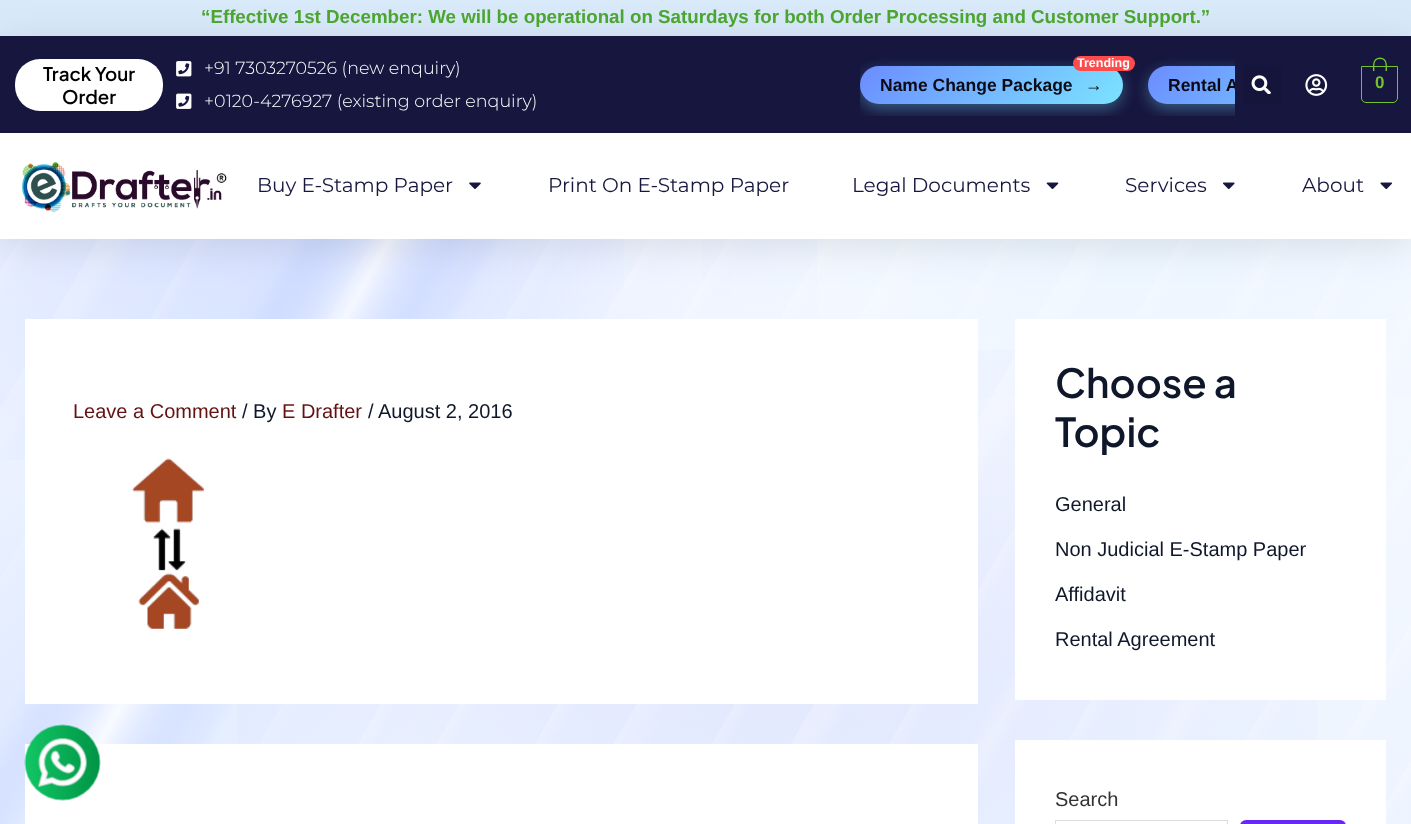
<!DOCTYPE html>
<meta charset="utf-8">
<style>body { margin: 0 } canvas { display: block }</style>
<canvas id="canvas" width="1411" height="824"></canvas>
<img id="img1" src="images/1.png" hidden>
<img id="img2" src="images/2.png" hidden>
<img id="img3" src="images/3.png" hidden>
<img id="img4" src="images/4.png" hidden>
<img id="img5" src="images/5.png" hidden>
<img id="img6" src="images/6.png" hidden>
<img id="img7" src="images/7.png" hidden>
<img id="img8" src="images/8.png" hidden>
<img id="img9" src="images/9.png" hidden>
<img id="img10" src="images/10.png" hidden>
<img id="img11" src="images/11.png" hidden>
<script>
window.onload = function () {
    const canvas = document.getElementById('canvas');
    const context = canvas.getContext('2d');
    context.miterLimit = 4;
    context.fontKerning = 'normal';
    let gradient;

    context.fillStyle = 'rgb(255, 255, 255)';
    context.fillRect(0, 0, 1411, 824);
    context.fillStyle = 'rgb(216, 233, 250)';
    context.fillRect(0, 0, 1411, 36);
    gradient = context.createLinearGradient(706, 0, 706, 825);
    gradient.addColorStop(0, 'rgb(255, 255, 255)');
    gradient.addColorStop(0.45, 'rgb(245, 249, 255)');
    gradient.addColorStop(1, 'rgb(237, 244, 255)');
    context.fillStyle = gradient;
    context.fillRect(0, 239, 1411, 585);
    gradient = context.createRadialGradient(776, 1114.62, 0, 776, 1114.62, 1125);
    gradient.addColorStop(0, 'rgba(99, 102, 241, 0.1)');
    gradient.addColorStop(0.62, 'rgba(99, 102, 241, 0)');
    context.fillStyle = gradient;
    context.beginPath();
    context.rect(237, 350, 1080, 474);
    context.save();
    context.clip();
    context.scale(1, 650 / 1125);
    context.fillRect(0, 0, 1411, 1427);
    context.restore();
    gradient = context.createRadialGradient(1157, 198.17, 0, 1157, 198.17, 1025);
    gradient.addColorStop(0, 'rgba(120, 190, 255, 0.14)');
    gradient.addColorStop(0.58, 'rgba(120, 190, 255, 0)');
    context.fillStyle = gradient;
    context.beginPath();
    context.rect(701, 239, 710, 159);
    context.save();
    context.clip();
    context.scale(1, 600 / 1025);
    context.fillRect(0, 0, 1411, 1408);
    context.restore();
    gradient = context.createRadialGradient(254, 257.88, 0, 254, 257.88, 1125);
    gradient.addColorStop(0, 'rgba(79, 123, 255, 0.16)');
    gradient.addColorStop(0.6, 'rgba(79, 123, 255, 0)');
    context.fillStyle = gradient;
    context.beginPath();
    context.rect(0, 239, 817, 221);
    context.save();
    context.clip();
    context.scale(1, 650 / 1125);
    context.fillRect(0, 0, 1411, 1427);
    context.restore();
    gradient = context.createLinearGradient(-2.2, 3.8, 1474, 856);
    gradient.addColorStop(0, 'rgba(255, 255, 255, 0)');
    gradient.addColorStop(0.03, 'rgba(255, 255, 255, 0)');
    gradient.addColorStop(0.03, 'rgba(255, 255, 255, 0.22)');
    gradient.addColorStop(0.03, 'rgba(255, 255, 255, 0.22)');
    gradient.addColorStop(0.05, 'rgba(255, 255, 255, 0)');
    gradient.addColorStop(0.08, 'rgba(255, 255, 255, 0)');
    gradient.addColorStop(0.08, 'rgba(255, 255, 255, 0.22)');
    gradient.addColorStop(0.08, 'rgba(255, 255, 255, 0.22)');
    gradient.addColorStop(0.09, 'rgba(255, 255, 255, 0)');
    gradient.addColorStop(0.12, 'rgba(255, 255, 255, 0)');
    gradient.addColorStop(0.12, 'rgba(255, 255, 255, 0.22)');
    gradient.addColorStop(0.13, 'rgba(255, 255, 255, 0.22)');
    gradient.addColorStop(0.14, 'rgba(255, 255, 255, 0)');
    gradient.addColorStop(0.17, 'rgba(255, 255, 255, 0)');
    gradient.addColorStop(0.17, 'rgba(255, 255, 255, 0.22)');
    gradient.addColorStop(0.17, 'rgba(255, 255, 255, 0.22)');
    gradient.addColorStop(0.18, 'rgba(255, 255, 255, 0)');
    gradient.addColorStop(0.21, 'rgba(255, 255, 255, 0)');
    gradient.addColorStop(0.22, 'rgba(255, 255, 255, 0.22)');
    gradient.addColorStop(0.22, 'rgba(255, 255, 255, 0.22)');
    gradient.addColorStop(0.23, 'rgba(255, 255, 255, 0)');
    gradient.addColorStop(0.26, 'rgba(255, 255, 255, 0)');
    gradient.addColorStop(0.26, 'rgba(255, 255, 255, 0.22)');
    gradient.addColorStop(0.26, 'rgba(255, 255, 255, 0.22)');
    gradient.addColorStop(0.27, 'rgba(255, 255, 255, 0)');
    gradient.addColorStop(0.3, 'rgba(255, 255, 255, 0)');
    gradient.addColorStop(0.31, 'rgba(255, 255, 255, 0.22)');
    gradient.addColorStop(0.31, 'rgba(255, 255, 255, 0.22)');
    gradient.addColorStop(0.32, 'rgba(255, 255, 255, 0)');
    gradient.addColorStop(0.35, 'rgba(255, 255, 255, 0)');
    gradient.addColorStop(0.35, 'rgba(255, 255, 255, 0.22)');
    gradient.addColorStop(0.35, 'rgba(255, 255, 255, 0.22)');
    gradient.addColorStop(0.36, 'rgba(255, 255, 255, 0)');
    gradient.addColorStop(0.4, 'rgba(255, 255, 255, 0)');
    gradient.addColorStop(0.4, 'rgba(255, 255, 255, 0.22)');
    gradient.addColorStop(0.4, 'rgba(255, 255, 255, 0.22)');
    gradient.addColorStop(0.41, 'rgba(255, 255, 255, 0)');
    gradient.addColorStop(0.44, 'rgba(255, 255, 255, 0)');
    gradient.addColorStop(0.44, 'rgba(255, 255, 255, 0.22)');
    gradient.addColorStop(0.44, 'rgba(255, 255, 255, 0.22)');
    gradient.addColorStop(0.45, 'rgba(255, 255, 255, 0)');
    gradient.addColorStop(0.49, 'rgba(255, 255, 255, 0)');
    gradient.addColorStop(0.49, 'rgba(255, 255, 255, 0.22)');
    gradient.addColorStop(0.49, 'rgba(255, 255, 255, 0.22)');
    gradient.addColorStop(0.5, 'rgba(255, 255, 255, 0)');
    gradient.addColorStop(0.53, 'rgba(255, 255, 255, 0)');
    gradient.addColorStop(0.53, 'rgba(255, 255, 255, 0.22)');
    gradient.addColorStop(0.53, 'rgba(255, 255, 255, 0.22)');
    gradient.addColorStop(0.55, 'rgba(255, 255, 255, 0)');
    gradient.addColorStop(0.58, 'rgba(255, 255, 255, 0)');
    gradient.addColorStop(0.58, 'rgba(255, 255, 255, 0.22)');
    gradient.addColorStop(0.58, 'rgba(255, 255, 255, 0.22)');
    gradient.addColorStop(0.59, 'rgba(255, 255, 255, 0)');
    gradient.addColorStop(0.62, 'rgba(255, 255, 255, 0)');
    gradient.addColorStop(0.62, 'rgba(255, 255, 255, 0.22)');
    gradient.addColorStop(0.63, 'rgba(255, 255, 255, 0.22)');
    gradient.addColorStop(0.64, 'rgba(255, 255, 255, 0)');
    gradient.addColorStop(0.67, 'rgba(255, 255, 255, 0)');
    gradient.addColorStop(0.67, 'rgba(255, 255, 255, 0.22)');
    gradient.addColorStop(0.67, 'rgba(255, 255, 255, 0.22)');
    gradient.addColorStop(0.68, 'rgba(255, 255, 255, 0)');
    gradient.addColorStop(0.71, 'rgba(255, 255, 255, 0)');
    gradient.addColorStop(0.72, 'rgba(255, 255, 255, 0.22)');
    gradient.addColorStop(0.72, 'rgba(255, 255, 255, 0.22)');
    gradient.addColorStop(0.73, 'rgba(255, 255, 255, 0)');
    gradient.addColorStop(0.76, 'rgba(255, 255, 255, 0)');
    gradient.addColorStop(0.76, 'rgba(255, 255, 255, 0.22)');
    gradient.addColorStop(0.76, 'rgba(255, 255, 255, 0.22)');
    gradient.addColorStop(0.77, 'rgba(255, 255, 255, 0)');
    gradient.addColorStop(0.8, 'rgba(255, 255, 255, 0)');
    gradient.addColorStop(0.81, 'rgba(255, 255, 255, 0.22)');
    gradient.addColorStop(0.81, 'rgba(255, 255, 255, 0.22)');
    gradient.addColorStop(0.82, 'rgba(255, 255, 255, 0)');
    gradient.addColorStop(0.85, 'rgba(255, 255, 255, 0)');
    gradient.addColorStop(0.85, 'rgba(255, 255, 255, 0.22)');
    gradient.addColorStop(0.85, 'rgba(255, 255, 255, 0.22)');
    gradient.addColorStop(0.86, 'rgba(255, 255, 255, 0)');
    gradient.addColorStop(0.9, 'rgba(255, 255, 255, 0)');
    gradient.addColorStop(0.9, 'rgba(255, 255, 255, 0.22)');
    gradient.addColorStop(0.9, 'rgba(255, 255, 255, 0.22)');
    gradient.addColorStop(0.91, 'rgba(255, 255, 255, 0)');
    gradient.addColorStop(0.94, 'rgba(255, 255, 255, 0)');
    gradient.addColorStop(0.94, 'rgba(255, 255, 255, 0.22)');
    gradient.addColorStop(0.94, 'rgba(255, 255, 255, 0.22)');
    gradient.addColorStop(0.95, 'rgba(255, 255, 255, 0)');
    gradient.addColorStop(0.99, 'rgba(255, 255, 255, 0)');
    gradient.addColorStop(0.99, 'rgba(255, 255, 255, 0.22)');
    gradient.addColorStop(0.99, 'rgba(255, 255, 255, 0.22)');
    gradient.addColorStop(1, 'rgba(255, 255, 255, 0)');
    context.fillStyle = gradient;
    context.fillRect(0, 239, 1411, 585);
    gradient = context.createLinearGradient(-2.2, 3.8, 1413, 821);
    gradient.addColorStop(0, 'rgba(79, 123, 255, 0)');
    gradient.addColorStop(0.22, 'rgba(79, 123, 255, 0.08)');
    gradient.addColorStop(0.28, 'rgba(255, 255, 255, 0.55)');
    gradient.addColorStop(0.34, 'rgba(79, 123, 255, 0.06)');
    gradient.addColorStop(0.44, 'rgba(79, 123, 255, 0)');
    gradient.addColorStop(1, 'rgba(0, 0, 0, 0)');
    context.fillStyle = gradient;
    context.fillRect(0, 239, 624, 585);
    context.fillStyle = 'rgba(0, 0, 0, 0.1)';
    context.filter = 'blur(19px)';
    context.beginPath();
    context.rect(0, 43, 1411, 202);
    context.fill();
    context.filter = 'none';
    context.fillStyle = 'rgb(22, 22, 63)';
    context.fillRect(0, 36, 1411, 97);
    context.fillStyle = 'rgb(255, 255, 255)';
    context.beginPath();
    context.roundRect(15, 59, 148, 52, 25);
    context.fill();
    context.drawImage(document.getElementById('img1'), 176, 61, 16, 16);
    context.drawImage(document.getElementById('img2'), 176, 93, 16, 16);
    context.save();
    context.beginPath();
    context.rect(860, 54, 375, 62);
    context.clip();
    context.fillStyle = 'rgba(123, 227, 255, 0.35)';
    context.filter = 'blur(7.5px)';
    context.beginPath();
    context.roundRect(860, 71, 263, 38, 19);
    context.fill();
    context.filter = 'none';
    context.restore();
    gradient = context.createLinearGradient(916, 10, 1066, 160);
    gradient.addColorStop(0, 'rgb(108, 140, 255)');
    gradient.addColorStop(1, 'rgb(123, 227, 255)');
    context.fillStyle = gradient;
    context.beginPath();
    context.roundRect(860, 66, 263, 38, 19);
    context.fill();
    context.fillStyle = 'rgb(255, 75, 75)';
    context.beginPath();
    context.roundRect(1073, 56, 62, 15, 7.5);
    context.fill();
    context.save();
    context.beginPath();
    context.rect(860, 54, 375, 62);
    context.clip();
    context.fillStyle = 'rgba(123, 227, 255, 0.35)';
    context.filter = 'blur(7.5px)';
    context.beginPath();
    context.roundRect(1148, 71, 262, 38, 19);
    context.fill();
    context.filter = 'none';
    context.restore();
    gradient = context.createLinearGradient(1204, 10, 1354, 160);
    gradient.addColorStop(0, 'rgb(108, 140, 255)');
    gradient.addColorStop(1, 'rgb(123, 227, 255)');
    context.fillStyle = gradient;
    context.beginPath();
    context.roundRect(1148, 66, 87, 38, [19, 0, 0, 19]);
    context.fill();
    context.fillStyle = 'rgb(21, 21, 60)';
    context.beginPath();
    context.roundRect(1243, 65, 38, 39, 4);
    context.fill();
    context.drawImage(document.getElementById('img3'), 1251, 75, 20, 19);
    context.drawImage(document.getElementById('img4'), 1305, 74, 23, 22);
    context.beginPath();
    context.roundRect(1361.5, 66.5, 36, 36, [0, 0, 4.5, 4.5]);
    context.strokeStyle = 'rgb(117, 195, 44)';
    context.stroke();
    context.fillStyle = 'rgb(117, 195, 44)';
    context.beginPath();
    context.moveTo(1380, 57.5);
    context.bezierCurveTo(1388, 57.5, 1387, 66, 1387, 71);
    context.lineTo(1373, 71);
    context.bezierCurveTo(1373, 66, 1372, 57.5, 1380, 57.5);
    context.closePath();
    context.moveTo(1380, 59);
    context.bezierCurveTo(1387, 59, 1385.5, 66.5, 1385.5, 71);
    context.lineTo(1374.5, 71);
    context.bezierCurveTo(1374.5, 66.5, 1373, 59, 1380, 59);
    context.closePath();
    context.fill('evenodd');
    context.fillStyle = 'rgb(255, 255, 255)';
    context.fillRect(0, 133, 1411, 106);
    context.drawImage(document.getElementById('img5'), 22, 156, 205, 58);
    context.drawImage(document.getElementById('img6'), 469, 182, 12, 7);
    context.drawImage(document.getElementById('img7'), 1046, 182, 13, 7);
    context.drawImage(document.getElementById('img8'), 1223, 182, 12, 7);
    context.drawImage(document.getElementById('img9'), 1380, 182, 12, 7);
    context.fillRect(25, 319, 953, 385);
    context.drawImage(document.getElementById('img10'), 132, 458, 72, 171);
    context.fillRect(25, 744, 953, 80);
    context.fillRect(1015, 319, 371, 381);
    context.fillRect(1015, 740, 371, 84);
    context.strokeStyle = 'rgb(221, 221, 221)';
    context.strokeRect(1055.5, 820.5, 172, 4);
    context.fillStyle = 'rgb(101, 40, 247)';
    context.beginPath();
    context.roundRect(1240, 820, 106, 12, 8);
    context.fill();
    context.drawImage(document.getElementById('img11'), 24, 724, 77, 77);
    context.font = 'bold 18.75px Liberation Sans';
    context.fillStyle = 'rgb(75, 165, 46)';
    context.fillText('“Effective 1st December: We will be operational on Saturdays for both Order Processing and Customer Support.”', 201, 23);
    context.font = '600 18.75px Plus Jakarta Sans';
    context.fillStyle = 'rgb(0, 0, 0)';
    context.fillText('Track Your', 43, 81);
    context.fillText('Order', 62, 104);
    context.font = '300 17.5px Montserrat';
    context.fillStyle = 'rgb(255, 255, 255)';
    context.fillText('+91 7303270526 (new enquiry)', 204, 74);
    context.fillText('+0120-4276927 (existing order enquiry)', 204, 107);
    context.font = 'bold 12.5px Liberation Sans';
    context.fillText('Trending', 1077, 67);
    context.font = 'bold 17.5px Liberation Sans';
    context.fillStyle = 'rgb(10, 11, 22)';
    context.fillText('Name Change Package', 880, 91);
    context.fillText('→', 1085, 91);
    context.save();
    context.beginPath();
    context.rect(860, 54, 375, 62);
    context.clip();
    context.fillText('Rental A', 1168, 91);
    context.restore();
    context.font = 'bold 17px Liberation Sans';
    context.fillStyle = 'rgb(117, 195, 44)';
    context.fillText('0', 1375, 88);
    context.font = '20px Montserrat';
    context.fillStyle = 'rgb(22, 22, 63)';
    context.fillText('Buy E-Stamp Paper', 257, 192);
    context.fillText('Print On E-Stamp Paper', 548, 192);
    context.fillText('Legal Documents', 852, 192);
    context.fillText('Services', 1125, 192);
    context.fillText('About', 1302, 192);
    context.font = '20px Liberation Sans';
    context.fillStyle = 'rgb(100, 17, 17)';
    context.fillText('Leave a Comment', 73, 418);
    context.fillStyle = 'rgb(15, 23, 42)';
    context.fillText('/ By', 242, 418);
    context.fillStyle = 'rgb(100, 17, 17)';
    context.fillText('E Drafter', 282, 418);
    context.fillStyle = 'rgb(15, 23, 42)';
    context.fillText('/', 368, 418);
    context.fillText('August 2, 2016', 378, 418);
    context.font = '600 40px Plus Jakarta Sans';
    context.fillText('Choose a', 1055, 398);
    context.fillText('Topic', 1055, 447);
    context.font = '20px Liberation Sans';
    context.fillText('General', 1055, 511);
    context.fillText('Non Judicial E-Stamp Paper', 1055, 556);
    context.fillText('Affidavit', 1055, 601);
    context.fillText('Rental Agreement', 1055, 646);
    context.fillStyle = 'rgb(51, 51, 51)';
    context.fillText('Search', 1055, 806);
};
</script>
